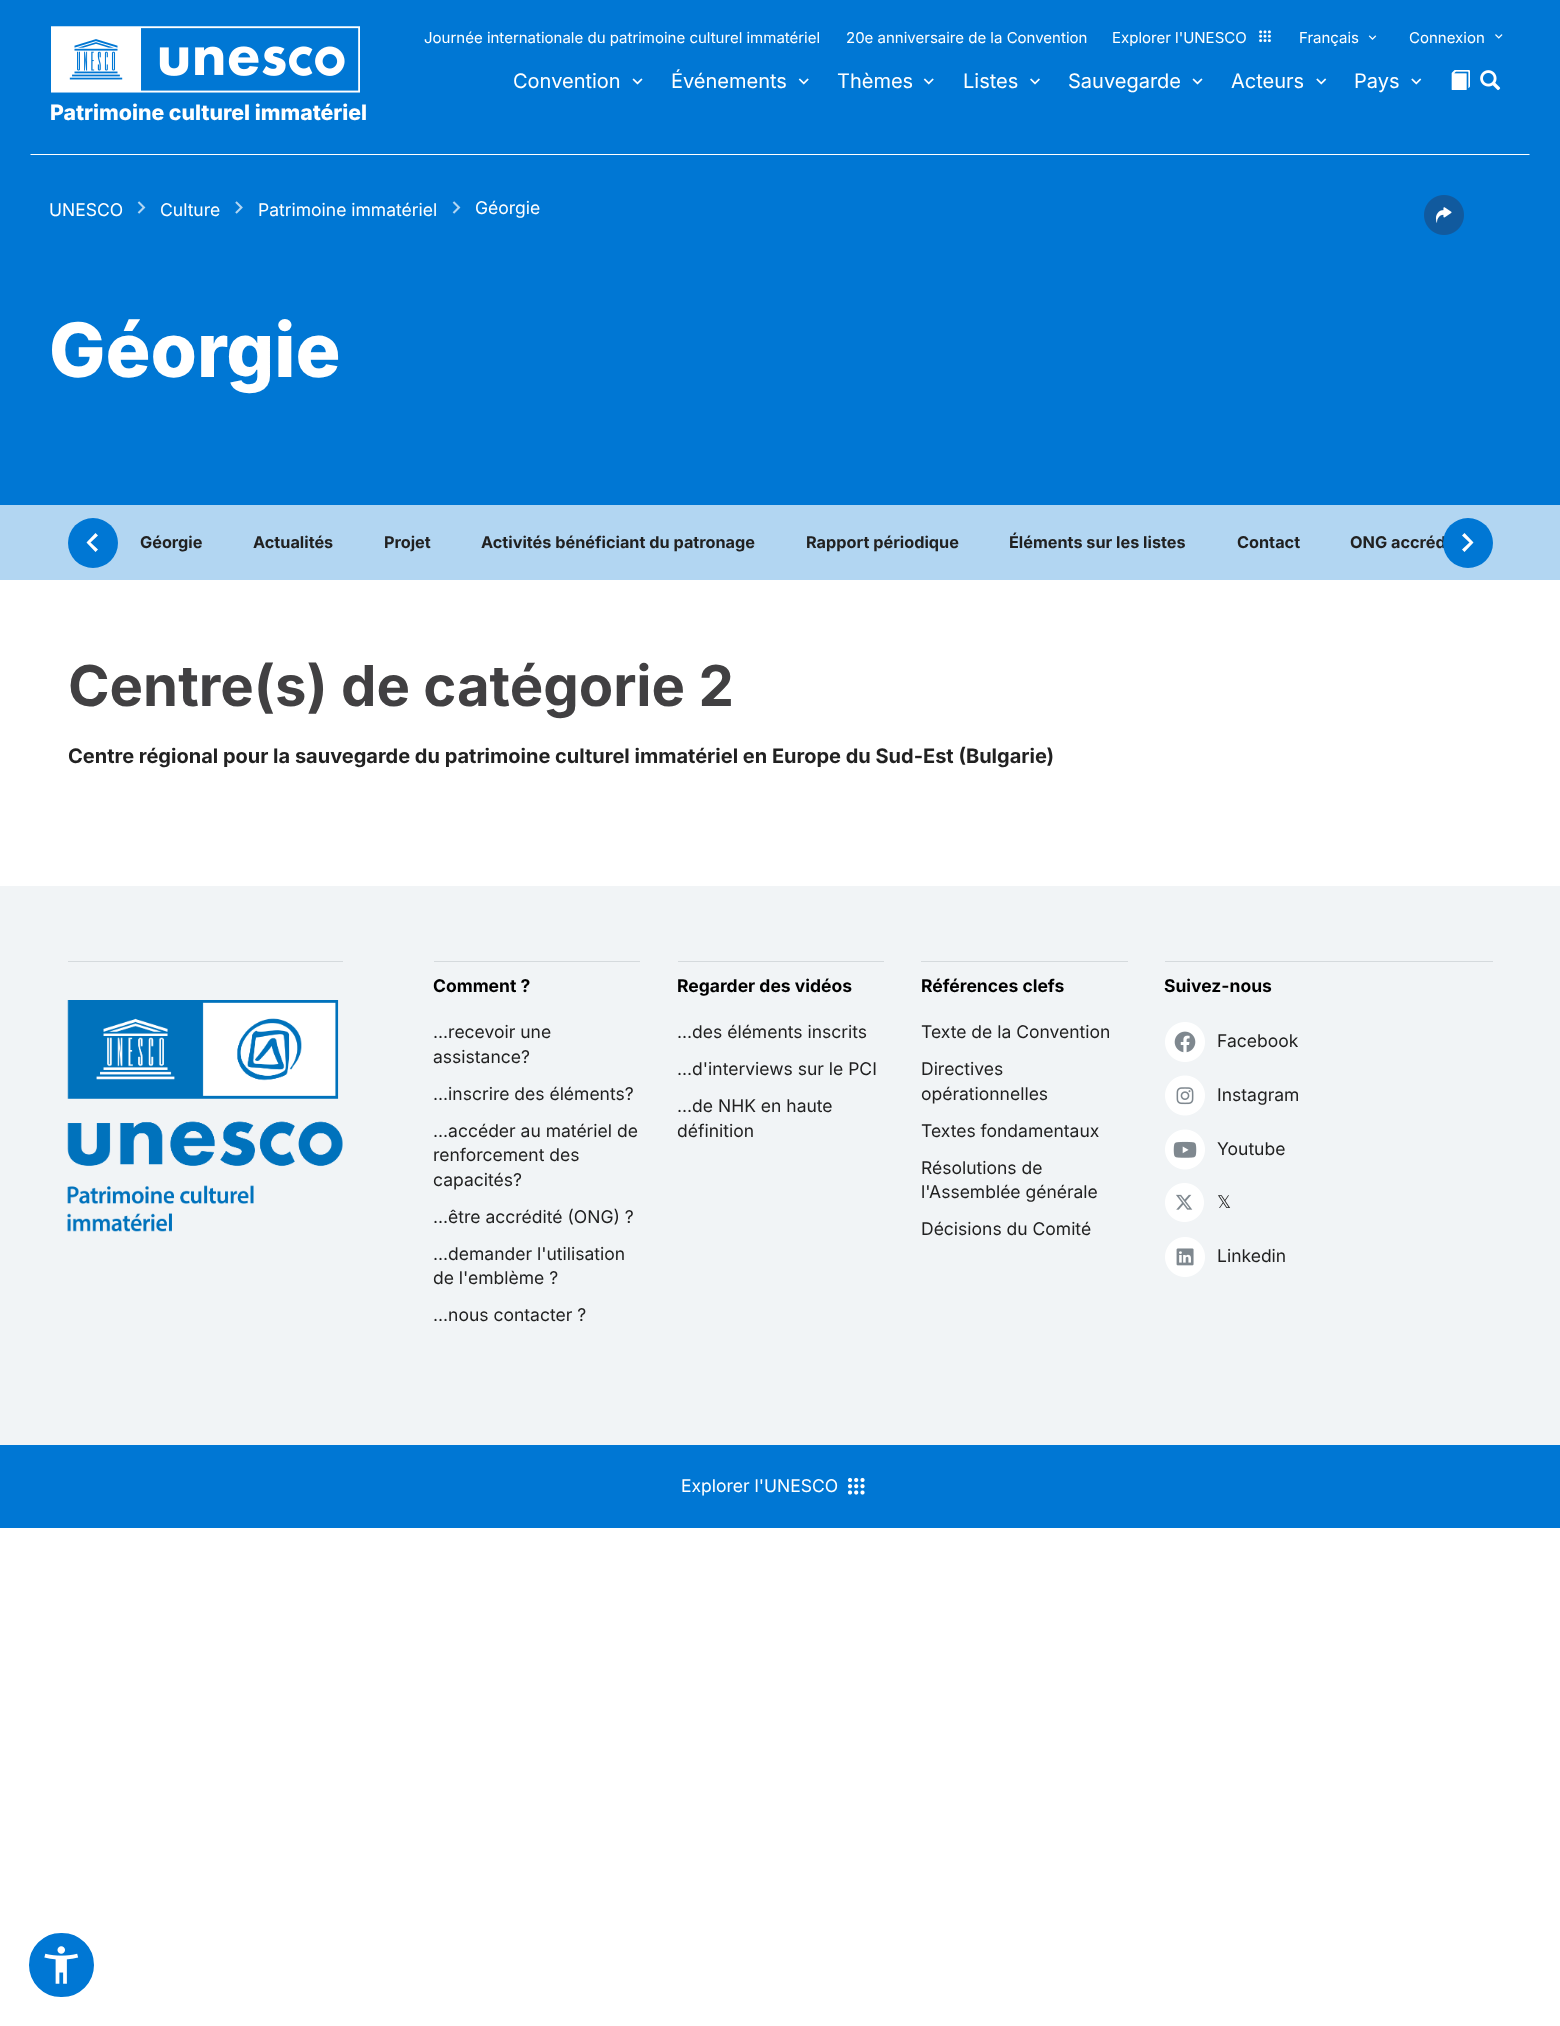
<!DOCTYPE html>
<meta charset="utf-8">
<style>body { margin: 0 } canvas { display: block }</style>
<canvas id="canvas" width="1560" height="2026"></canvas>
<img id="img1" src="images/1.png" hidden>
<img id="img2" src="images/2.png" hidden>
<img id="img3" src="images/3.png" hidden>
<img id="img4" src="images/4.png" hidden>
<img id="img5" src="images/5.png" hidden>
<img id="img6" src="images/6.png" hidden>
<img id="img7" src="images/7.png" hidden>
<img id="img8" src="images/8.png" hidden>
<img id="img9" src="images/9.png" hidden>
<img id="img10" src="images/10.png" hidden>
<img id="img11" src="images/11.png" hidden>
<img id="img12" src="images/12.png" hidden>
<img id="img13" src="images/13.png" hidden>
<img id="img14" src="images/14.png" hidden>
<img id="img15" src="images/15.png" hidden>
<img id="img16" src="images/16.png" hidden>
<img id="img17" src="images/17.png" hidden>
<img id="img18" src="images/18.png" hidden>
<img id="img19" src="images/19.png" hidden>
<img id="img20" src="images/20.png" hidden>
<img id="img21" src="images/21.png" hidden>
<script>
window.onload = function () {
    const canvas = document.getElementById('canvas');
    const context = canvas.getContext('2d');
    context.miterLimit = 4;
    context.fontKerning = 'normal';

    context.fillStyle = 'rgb(255, 255, 255)';
    context.fillRect(0, 0, 1560, 2026);
    context.fillStyle = 'rgb(0, 119, 212)';
    context.fillRect(0, 0, 1560, 505);
    context.fillStyle = 'rgb(255, 255, 255)';
    context.beginPath();
    context.moveTo(1530, 155);
    context.lineTo(30, 155);
    context.lineTo(31, 154);
    context.lineTo(1529, 154);
    context.closePath();
    context.fill();
    context.drawImage(document.getElementById('img1'), 1259, 30, 12, 13);
    context.drawImage(document.getElementById('img2'), 1368, 35, 9, 5);
    context.drawImage(document.getElementById('img3'), 1495, 34, 8, 5);
    context.drawImage(document.getElementById('img4'), 632, 78, 11, 7);
    context.drawImage(document.getElementById('img5'), 798, 78, 11, 7);
    context.drawImage(document.getElementById('img5'), 923, 78, 11, 7);
    context.drawImage(document.getElementById('img6'), 1030, 78, 10, 7);
    context.drawImage(document.getElementById('img4'), 1192, 78, 11, 7);
    context.drawImage(document.getElementById('img7'), 1316, 78, 11, 7);
    context.drawImage(document.getElementById('img7'), 1411, 78, 11, 7);
    context.drawImage(document.getElementById('img8'), 1451, 70, 19, 20);
    context.drawImage(document.getElementById('img9'), 1480, 70, 21, 21);
    context.drawImage(document.getElementById('img10'), 51, 26, 309, 67);
    context.drawImage(document.getElementById('img11'), 137, 201, 9, 13);
    context.drawImage(document.getElementById('img12'), 235, 201, 8, 13);
    context.drawImage(document.getElementById('img11'), 452, 201, 9, 13);
    context.drawImage(document.getElementById('img13'), 1424, 195, 40, 40);
    context.fillStyle = 'rgb(178, 214, 242)';
    context.fillRect(0, 505, 1560, 75);
    context.fillStyle = 'rgb(0, 119, 212)';
    context.beginPath();
    context.arc(93, 543, 25, 0, 2 * Math.PI);
    context.fill();
    context.fillStyle = 'rgb(255, 255, 255)';
    context.beginPath();
    context.moveTo(98, 535.5);
    context.lineTo(95.5, 533);
    context.lineTo(86.5, 542.5);
    context.lineTo(95.5, 552);
    context.lineTo(98, 549.5);
    context.lineTo(90.5, 542.5);
    context.closePath();
    context.fill();
    context.fillStyle = 'rgb(241, 244, 246)';
    context.fillRect(0, 886, 1560, 559);
    context.fillStyle = 'rgb(213, 218, 221)';
    context.fillRect(68, 961, 275, 1);
    context.drawImage(document.getElementById('img14'), 67, 1000, 276, 232);
    context.fillRect(434, 961, 206, 1);
    context.fillRect(678, 961, 206, 1);
    context.fillRect(921, 961, 207, 1);
    context.fillRect(1165, 961, 328, 1);
    context.drawImage(document.getElementById('img15'), 1165, 1022, 40, 40);
    context.drawImage(document.getElementById('img16'), 1165, 1075, 40, 41);
    context.drawImage(document.getElementById('img17'), 1165, 1129, 40, 41);
    context.drawImage(document.getElementById('img18'), 1165, 1183, 39, 39);
    context.drawImage(document.getElementById('img19'), 1165, 1237, 40, 40);
    context.fillStyle = 'rgb(0, 119, 212)';
    context.fillRect(0, 1445, 1560, 83);
    context.drawImage(document.getElementById('img20'), 847, 1477, 18, 18);
    context.beginPath();
    context.roundRect(27, 1931, 69, 68, 34);
    context.fill();
    context.strokeStyle = 'rgb(255, 255, 255)';
    context.lineWidth = 4;
    context.stroke();
    context.drawImage(document.getElementById('img21'), 44, 1946, 35, 38);
    context.font = '15px Inter';
    context.fillStyle = 'rgb(255, 255, 255)';
    context.fillText('Journée internationale du patrimoine culturel immatériel', 424, 43);
    context.fillText('20e anniversaire de la Convention', 846, 43);
    context.fillText('Explorer l\'UNESCO', 1112, 43);
    context.fillText('Français', 1299, 43);
    context.fillText('Connexion', 1409, 43);
    context.font = '20px Inter';
    context.fillText('Convention', 513, 88);
    context.fillText('Événements', 671, 88);
    context.fillText('Thèmes', 837, 88);
    context.fillText('Listes', 963, 88);
    context.fillText('Sauvegarde', 1068, 88);
    context.fillText('Acteurs', 1231, 88);
    context.fillText('Pays', 1354, 88);
    context.font = '800 21.25px Inter';
    context.fillText('Patrimoine culturel immatériel', 50, 120);
    context.font = '17.5px Inter';
    context.fillText('UNESCO', 49, 216);
    context.fillText('Culture', 160, 216);
    context.fillText('Patrimoine immatériel', 258, 216);
    context.fillText('Géorgie', 475, 214);
    context.font = '800 75px Inter';
    context.fillText('Géorgie', 49, 377);
    context.font = 'bold 16.25px Inter';
    context.fillStyle = 'rgb(33, 33, 33)';
    context.fillText('Géorgie', 140, 548);
    context.fillText('Actualités', 253, 548);
    context.fillText('Projet', 384, 548);
    context.fillText('Activités bénéficiant du patronage', 481, 548);
    context.fillText('Rapport périodique', 806, 548);
    context.fillText('Éléments sur les listes', 1009, 548);
    context.fillText('Contact', 1237, 548);
    context.fillText('ONG accréd', 1350, 548);
    context.fillStyle = 'rgb(0, 119, 212)';
    context.beginPath();
    context.arc(1468, 543, 25, 0, 2 * Math.PI);
    context.fill();
    context.fillStyle = 'rgb(255, 255, 255)';
    context.beginPath();
    context.moveTo(1464.5, 533);
    context.lineTo(1462, 535.5);
    context.lineTo(1469.5, 542.5);
    context.lineTo(1462, 549.5);
    context.lineTo(1464.5, 552);
    context.lineTo(1473.5, 542.5);
    context.closePath();
    context.fill();
    context.font = 'bold 56.25px Inter';
    context.fillStyle = 'rgb(65, 64, 66)';
    context.fillText('Centre(s) de catégorie 2', 68, 706);
    context.font = 'bold 20px Inter';
    context.fillStyle = 'rgb(33, 33, 33)';
    context.fillText('Centre régional pour la sauvegarde du patrimoine culturel immatériel en Europe du Sud-Est (Bulgarie)', 68, 763);
    context.font = 'bold 17.5px Inter';
    context.fillStyle = 'rgb(0, 0, 0)';
    context.fillText('Comment ?', 433, 992);
    context.font = '17.5px Inter';
    context.fillStyle = 'rgb(33, 33, 33)';
    context.fillText('...recevoir une', 433, 1038);
    context.fillText('assistance?', 433, 1063);
    context.fillText('...inscrire des éléments?', 433, 1100);
    context.fillText('...accéder au matériel de', 433, 1137);
    context.fillText('renforcement des', 433, 1161);
    context.fillText('capacités?', 433, 1186);
    context.fillText('...être accrédité (ONG) ?', 433, 1223);
    context.fillText('...demander l\'utilisation', 433, 1260);
    context.fillText('de l\'emblème ?', 433, 1284);
    context.fillText('...nous contacter ?', 433, 1321);
    context.font = 'bold 17.5px Inter';
    context.fillStyle = 'rgb(0, 0, 0)';
    context.fillText('Regarder des vidéos', 677, 992);
    context.font = '17.5px Inter';
    context.fillStyle = 'rgb(33, 33, 33)';
    context.fillText('...des éléments inscrits', 677, 1038);
    context.fillText('...d\'interviews sur le PCI', 677, 1075);
    context.fillText('...de NHK en haute', 677, 1112);
    context.fillText('définition', 677, 1137);
    context.font = 'bold 17.5px Inter';
    context.fillStyle = 'rgb(0, 0, 0)';
    context.fillText('Références clefs', 921, 992);
    context.font = '17.5px Inter';
    context.fillStyle = 'rgb(33, 33, 33)';
    context.fillText('Texte de la Convention', 921, 1038);
    context.fillText('Directives', 921, 1075);
    context.fillText('opérationnelles', 921, 1100);
    context.fillText('Textes fondamentaux', 921, 1137);
    context.fillText('Résolutions de', 921, 1174);
    context.fillText('l\'Assemblée générale', 921, 1198);
    context.fillText('Décisions du Comité', 921, 1235);
    context.font = 'bold 17.5px Inter';
    context.fillStyle = 'rgb(0, 0, 0)';
    context.fillText('Suivez-nous', 1164, 992);
    context.font = '17.5px Inter';
    context.fillStyle = 'rgb(33, 33, 33)';
    context.fillText('Facebook', 1217, 1047);
    context.fillText('Instagram', 1217, 1101);
    context.fillText('Youtube', 1217, 1155);
    context.font = '17.5px DejaVu Sans';
    context.fillText('𝕏', 1217, 1208);
    context.font = '17.5px Inter';
    context.fillText('Linkedin', 1217, 1262);
    context.fillStyle = 'rgb(255, 255, 255)';
    context.fillText('Explorer l\'UNESCO', 681, 1492);
};
</script>
